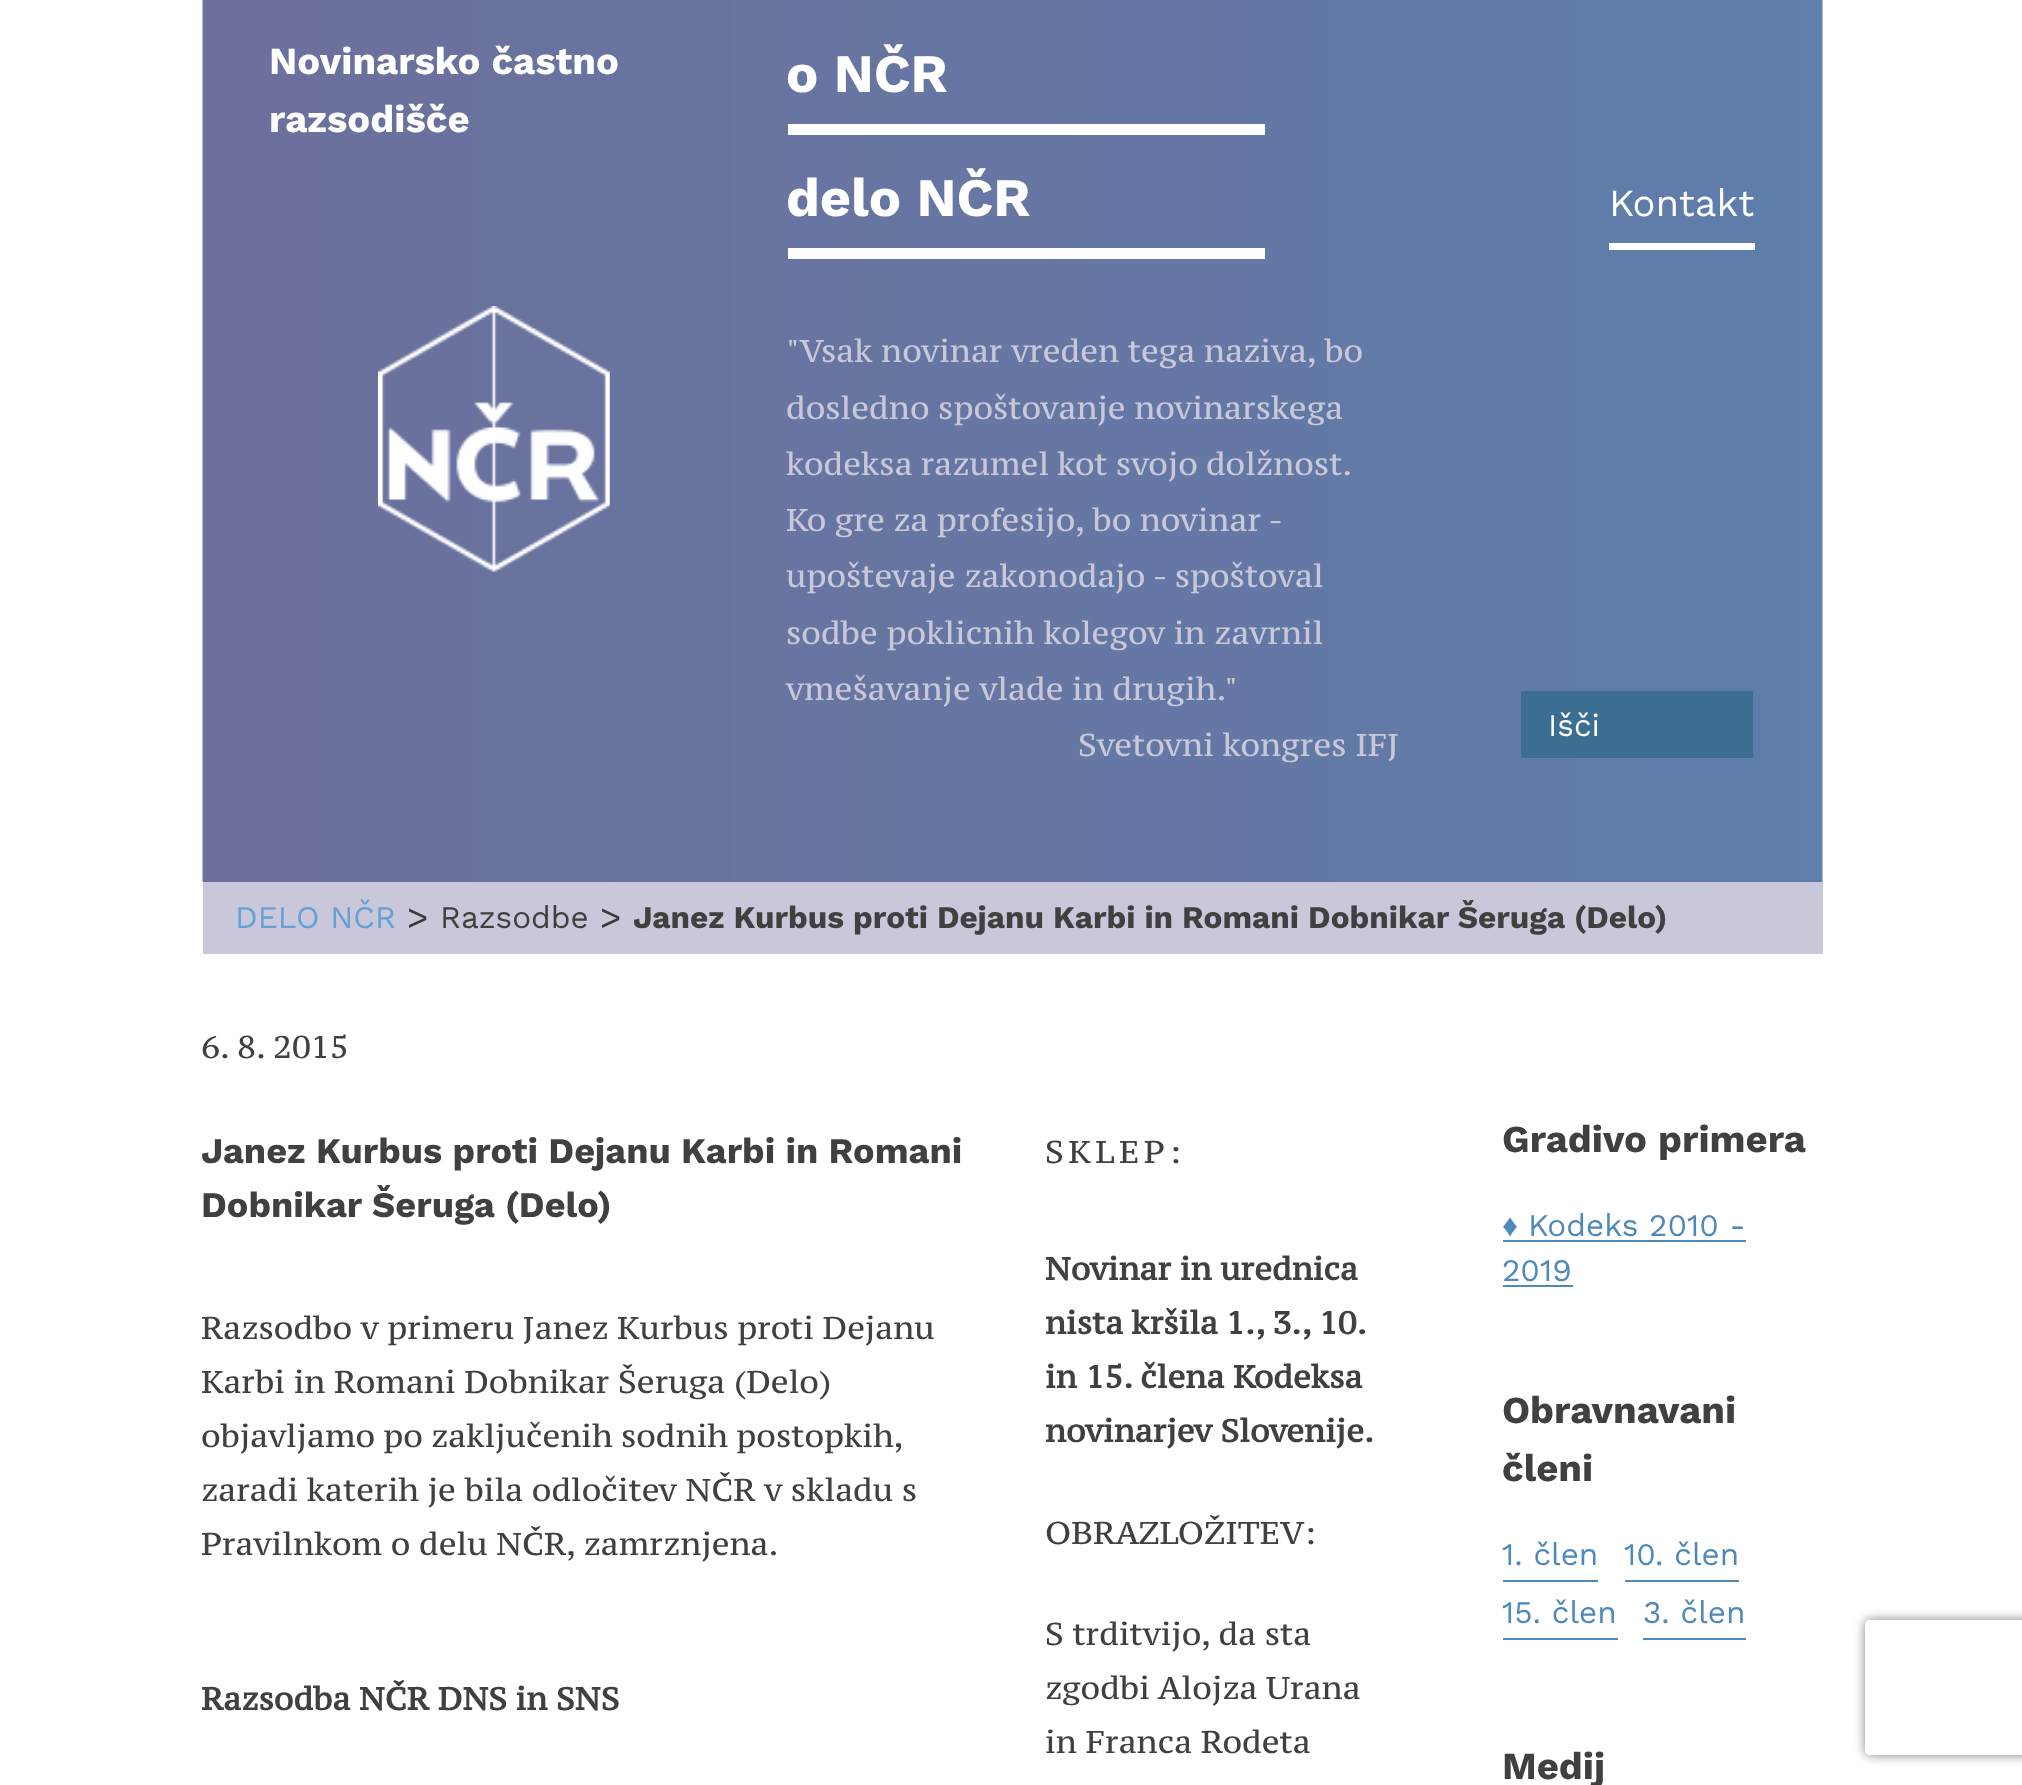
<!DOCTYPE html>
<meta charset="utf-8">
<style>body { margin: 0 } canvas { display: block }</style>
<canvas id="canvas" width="2022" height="1785"></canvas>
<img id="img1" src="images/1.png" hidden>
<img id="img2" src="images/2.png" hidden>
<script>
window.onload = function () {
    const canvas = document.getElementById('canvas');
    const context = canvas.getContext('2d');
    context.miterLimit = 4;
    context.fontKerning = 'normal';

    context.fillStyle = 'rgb(255, 255, 255)';
    context.fillRect(0, 0, 2022, 1785);
    context.drawImage(document.getElementById('img1'), 202, 0, 1621, 882);
    context.drawImage(document.getElementById('img2'), 378, 306, 232, 266);
    context.fillRect(788, 124, 477, 11);
    context.fillRect(788, 248, 477, 11);
    context.fillRect(1609, 243, 146, 7);
    context.fillStyle = 'rgb(59, 110, 144)';
    context.fillRect(1521, 691, 232, 67);
    context.fillStyle = 'rgb(201, 199, 217)';
    context.fillRect(203, 882, 1620, 72);
    context.fillStyle = 'rgb(79, 137, 185)';
    context.fillRect(1503, 1240, 243, 2);
    context.fillRect(1503, 1285, 70, 2);
    context.fillRect(1503, 1580, 95, 2);
    context.fillRect(1625, 1580, 114, 2);
    context.fillRect(1503, 1638, 115, 2);
    context.fillRect(1643, 1638, 103, 2);
    context.save();
    context.beginPath();
    context.moveTo(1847, 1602);
    context.lineTo(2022, 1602);
    context.lineTo(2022, 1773);
    context.lineTo(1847, 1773);
    context.closePath();
    context.moveTo(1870, 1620);
    context.lineTo(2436, 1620);
    context.bezierCurveTo(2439, 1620, 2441, 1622, 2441, 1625);
    context.lineTo(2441, 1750);
    context.bezierCurveTo(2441, 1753, 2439, 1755, 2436, 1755);
    context.lineTo(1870, 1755);
    context.bezierCurveTo(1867, 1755, 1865, 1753, 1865, 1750);
    context.lineTo(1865, 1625);
    context.bezierCurveTo(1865, 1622, 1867, 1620, 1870, 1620);
    context.closePath();
    context.clip('evenodd');
    context.fillStyle = 'rgb(128, 128, 128)';
    context.filter = 'blur(5.5px)';
    context.beginPath();
    context.roundRect(1865, 1620, 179, 135, 5);
    context.fill();
    context.filter = 'none';
    context.restore();
    context.font = 'bold 38.25px Work Sans';
    context.fillStyle = 'rgb(255, 255, 255)';
    context.fillText('Novinarsko častno', 269, 74);
    context.fillText('razsodišče', 269, 132);
    context.font = 'bold 54px Work Sans';
    context.fillText('o NČR', 786, 92);
    context.fillText('delo NČR', 786, 216);
    context.font = '38.25px Work Sans';
    context.fillText('Kontakt', 1609, 216);
    context.font = '31.5px PT Serif Caption';
    context.fillStyle = 'rgb(201, 200, 217)';
    context.fillText('"Vsak novinar vreden tega naziva, bo', 786, 362);
    context.fillText('dosledno spoštovanje novinarskega', 786, 419);
    context.wordSpacing = '-0.5px';
    context.fillText('kodeksa razumel kot svojo dolžnost.', 786, 475);
    context.wordSpacing = '-0.25px';
    context.fillText('Ko gre za profesijo, bo novinar -', 786, 531);
    context.wordSpacing = '0px';
    context.fillText('upoštevaje zakonodajo - spoštoval', 786, 587);
    context.fillText('sodbe poklicnih kolegov in zavrnil', 786, 644);
    context.fillText('vmešavanje vlade in drugih."', 786, 700);
    context.fillText('Svetovni kongres IFJ', 1078, 756);
    context.font = '31.5px Work Sans';
    context.fillStyle = 'rgb(255, 255, 255)';
    context.fillText('Išči', 1548, 736);
    context.fillStyle = 'rgb(99, 161, 215)';
    context.fillText('DELO NČR', 235, 928);
    context.font = '36px Work Sans';
    context.fillStyle = 'rgb(59, 58, 60)';
    context.fillText('>', 407, 929);
    context.font = '31.5px Work Sans';
    context.fillStyle = 'rgb(64, 64, 64)';
    context.fillText('Razsodbe', 440, 928);
    context.font = '36px Work Sans';
    context.fillStyle = 'rgb(59, 58, 60)';
    context.fillText('>', 600, 929);
    context.font = 'bold 31.5px Work Sans';
    context.fillStyle = 'rgb(64, 64, 64)';
    context.fillText('Janez Kurbus proti Dejanu Karbi in Romani Dobnikar Šeruga (Delo)', 633, 928);
    context.font = '31.5px PT Serif Caption';
    context.fillText('6. 8. 2015', 201, 1058);
    context.font = 'bold 36px Work Sans';
    context.fillText('Janez Kurbus proti Dejanu Karbi in Romani', 201, 1163);
    context.fillText('Dobnikar Šeruga (Delo)', 201, 1217);
    context.font = '31.5px PT Serif Caption';
    context.fillText('Razsodbo v primeru Janez Kurbus proti Dejanu', 201, 1339);
    context.fillText('Karbi in Romani Dobnikar Šeruga (Delo)', 201, 1393);
    context.wordSpacing = '-0.5px';
    context.fillText('objavljamo po zaključenih sodnih postopkih,', 201, 1447);
    context.wordSpacing = '0px';
    context.fillText('zaradi katerih je bila odločitev NČR v skladu s', 201, 1501);
    context.fillText('Pravilnkom o delu NČR, zamrznjena.', 201, 1555);
    context.font = 'bold 31.5px PT Serif Caption';
    context.fillText('Razsodba NČR DNS in SNS', 201, 1710);
    context.letterSpacing = '4.5px';
    context.font = '31.5px PT Serif Caption';
    context.fillText('SKLEP:', 1045, 1163);
    context.letterSpacing = '0px';
    context.font = 'bold 31.5px PT Serif Caption';
    context.fillText('Novinar in urednica', 1045, 1280);
    context.wordSpacing = '-0.5px';
    context.fillText('nista kršila 1., 3., 10.', 1045, 1334);
    context.wordSpacing = '0px';
    context.fillText('in 15. člena Kodeksa', 1045, 1388);
    context.fillText('novinarjev Slovenije.', 1045, 1442);
    context.font = '31.5px PT Serif Caption';
    context.fillText('OBRAZLOŽITEV:', 1045, 1544);
    context.fillText('S trditvijo, da sta', 1045, 1645);
    context.fillText('zgodbi Alojza Urana', 1045, 1699);
    context.fillText('in Franca Rodeta', 1045, 1753);
    context.font = 'bold 38.25px Work Sans';
    context.fillText('Gradivo primera', 1502, 1152);
    context.font = '31.5px Liberation Serif';
    context.fillStyle = 'rgb(79, 137, 185)';
    context.fillText('♦', 1502, 1236);
    context.font = '31.5px Work Sans';
    context.fillText('Kodeks 2010 -', 1528, 1236);
    context.fillText('2019', 1502, 1281);
    context.font = 'bold 38.25px Work Sans';
    context.fillStyle = 'rgb(64, 64, 64)';
    context.fillText('Obravnavani', 1502, 1423);
    context.fillText('členi', 1502, 1481);
    context.font = '31.5px Work Sans';
    context.fillStyle = 'rgb(79, 137, 185)';
    context.fillText('1. člen', 1502, 1565);
    context.fillText('10. člen', 1624, 1565);
    context.fillText('15. člen', 1502, 1623);
    context.fillText('3. člen', 1643, 1623);
    context.font = 'bold 38.25px Work Sans';
    context.fillStyle = 'rgb(64, 64, 64)';
    context.fillText('Medij', 1502, 1779);
};
</script>
